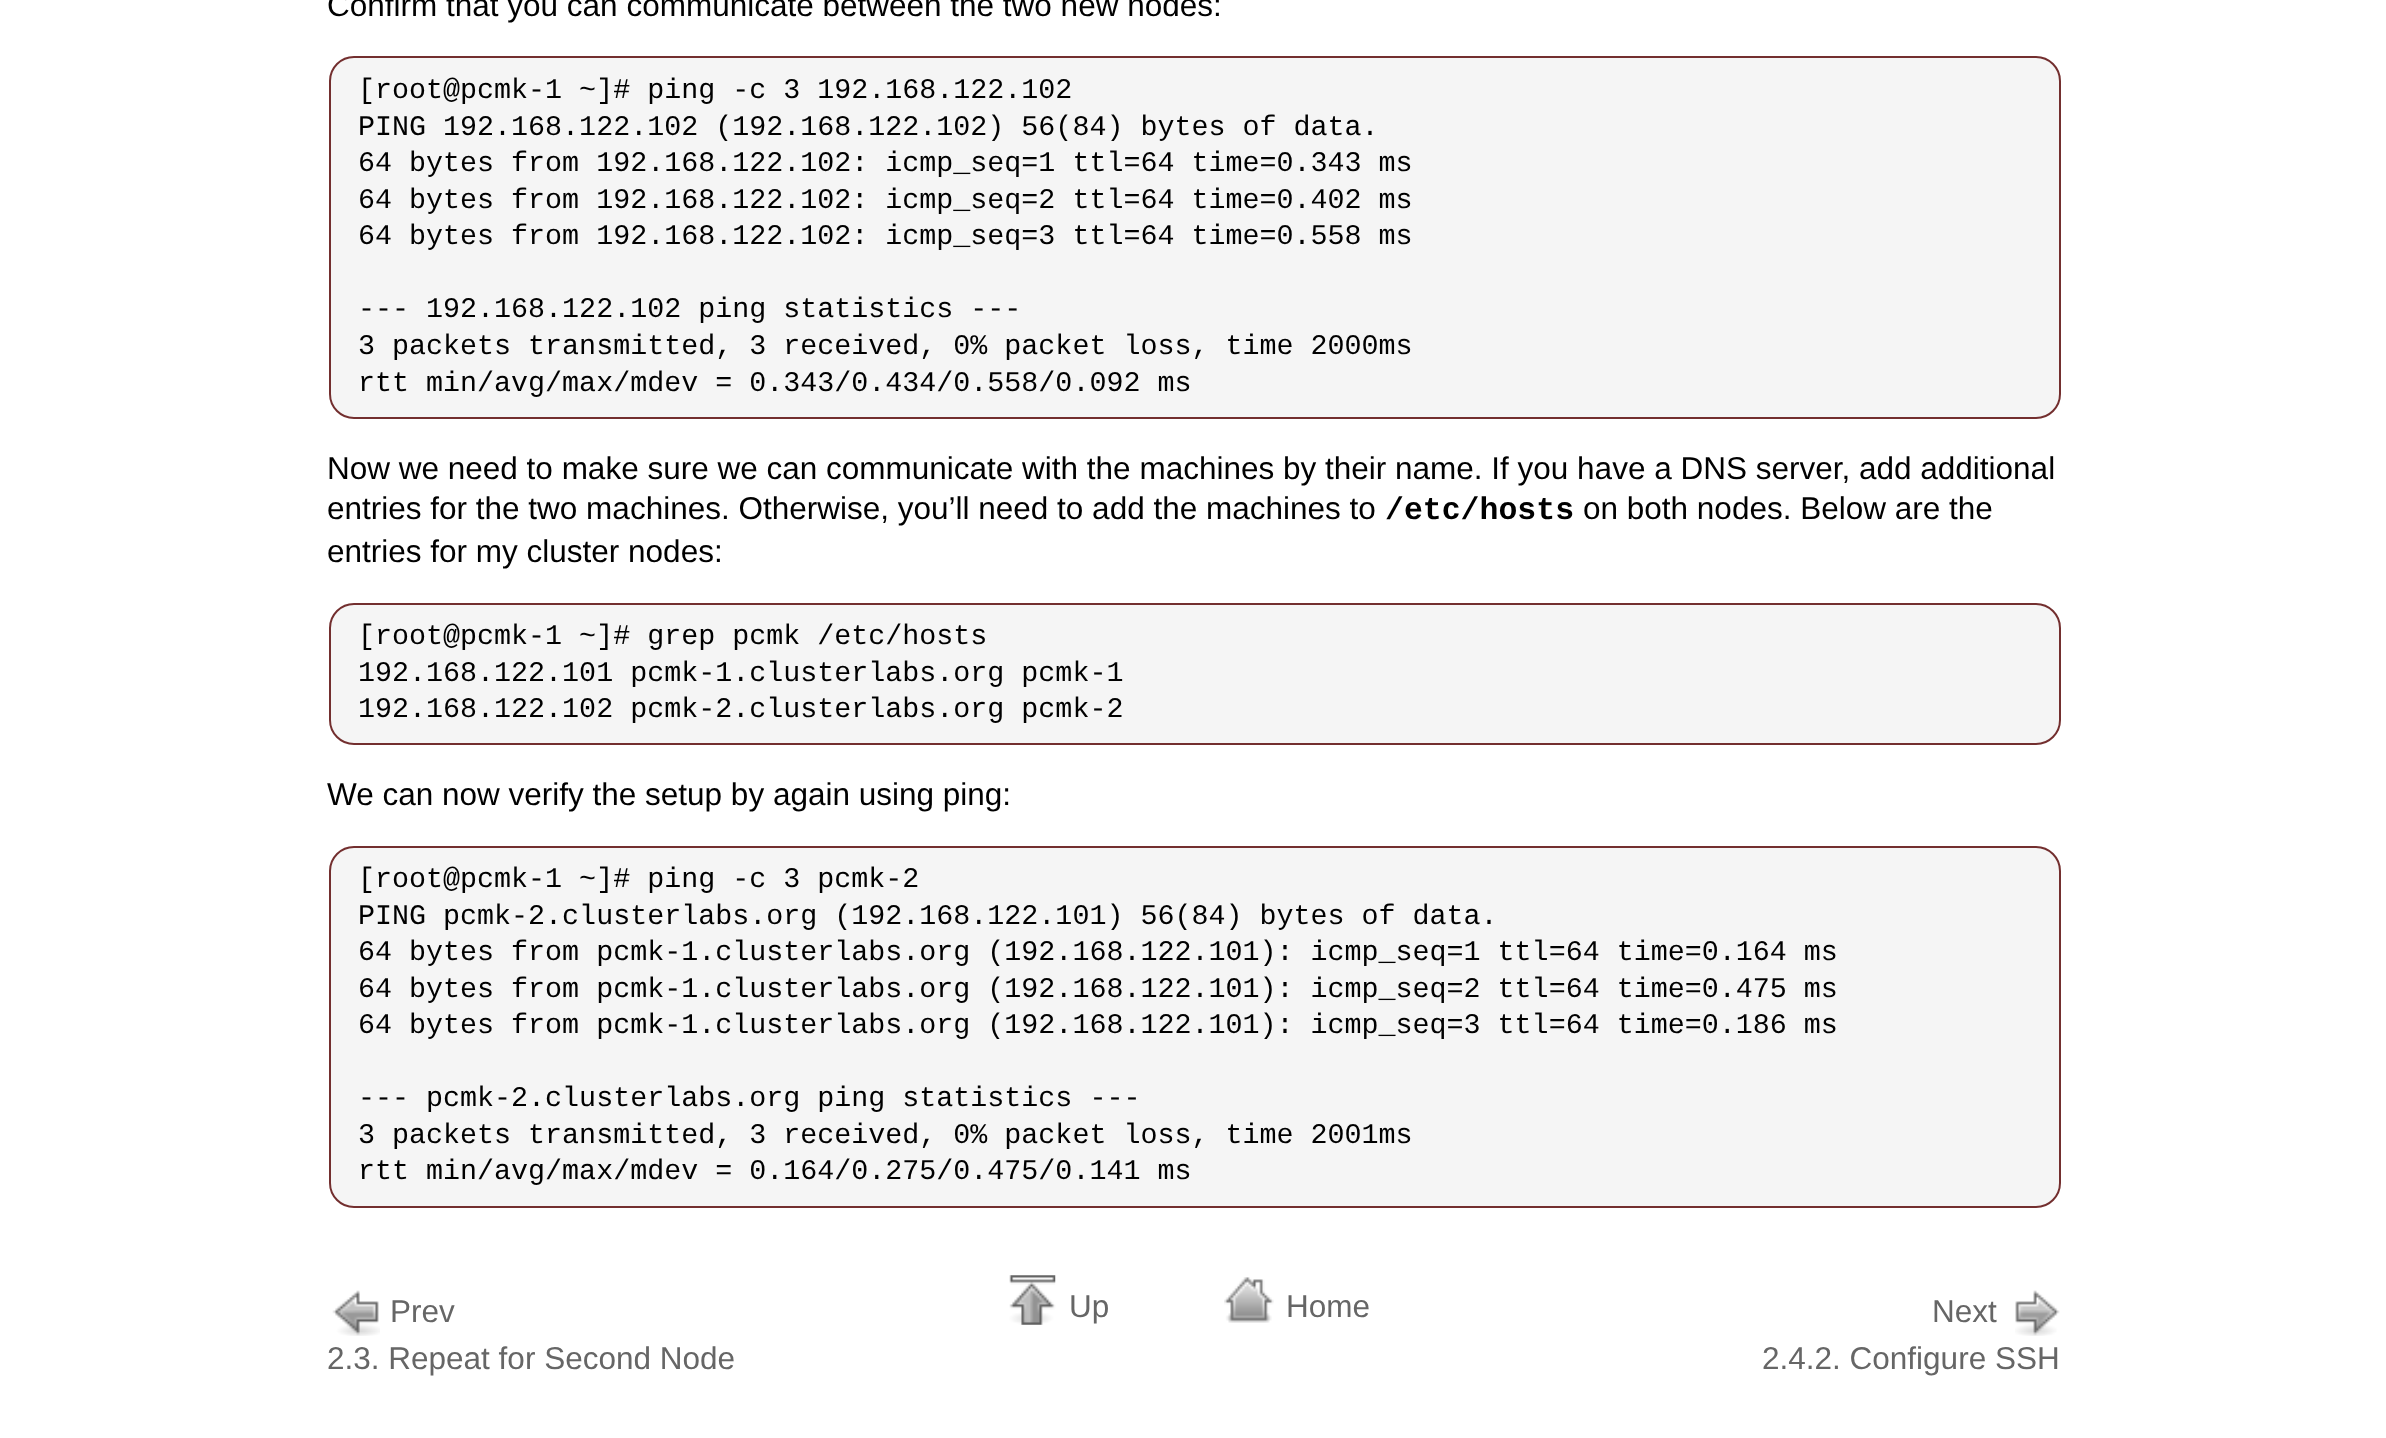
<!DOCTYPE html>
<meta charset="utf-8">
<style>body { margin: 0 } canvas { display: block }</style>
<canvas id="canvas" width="2386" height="1438"></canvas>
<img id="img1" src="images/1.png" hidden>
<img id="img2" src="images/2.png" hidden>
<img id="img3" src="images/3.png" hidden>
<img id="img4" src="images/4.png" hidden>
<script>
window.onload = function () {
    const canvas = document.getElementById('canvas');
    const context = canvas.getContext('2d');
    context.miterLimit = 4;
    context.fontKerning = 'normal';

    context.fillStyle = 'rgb(255, 255, 255)';
    context.fillRect(0, 0, 2386, 1438);
    context.fillStyle = 'rgb(245, 245, 245)';
    context.beginPath();
    context.roundRect(330, 57, 1730, 361, 24);
    context.fill();
    context.strokeStyle = 'rgb(115, 47, 47)';
    context.lineWidth = 2;
    context.stroke();
    context.beginPath();
    context.roundRect(330, 604, 1730, 140, 24);
    context.fill();
    context.stroke();
    context.beginPath();
    context.roundRect(330, 847, 1730, 360, 24);
    context.fill();
    context.stroke();
    context.drawImage(document.getElementById('img1'), 332, 1290, 48, 46);
    context.drawImage(document.getElementById('img2'), 1009, 1275, 47, 50);
    context.drawImage(document.getElementById('img3'), 1224, 1277, 50, 46);
    context.drawImage(document.getElementById('img4'), 2015, 1290, 45, 46);
    context.font = '31.5px Liberation Sans';
    context.fillStyle = 'rgb(0, 0, 0)';
    context.fillText('Confirm that you can communicate between the two new nodes:', 327, 16);
    context.font = '28.35px Liberation Mono';
    context.fillText('[root@pcmk-1 ~]# ping -c 3 192.168.122.102', 358, 98);
    context.fillText('PING 192.168.122.102 (192.168.122.102) 56(84) bytes of data.', 358, 135);
    context.fillText('64 bytes from 192.168.122.102: icmp_seq=1 ttl=64 time=0.343 ms', 358, 171);
    context.fillText('64 bytes from 192.168.122.102: icmp_seq=2 ttl=64 time=0.402 ms', 358, 208);
    context.fillText('64 bytes from 192.168.122.102: icmp_seq=3 ttl=64 time=0.558 ms', 358, 244);
    context.fillText('--- 192.168.122.102 ping statistics ---', 358, 317);
    context.fillText('3 packets transmitted, 3 received, 0% packet loss, time 2000ms', 358, 354);
    context.fillText('rtt min/avg/max/mdev = 0.343/0.434/0.558/0.092 ms', 358, 391);
    context.font = '31.5px Liberation Sans';
    context.fillText('Now we need to make sure we can communicate with the machines by their name. If you have a DNS server, add additional', 327, 479);
    context.fillText('entries for the two machines. Otherwise, you’ll need to add the machines to', 327, 519);
    context.font = 'bold 31.5px Liberation Mono';
    context.fillText('/etc/hosts', 1385, 519);
    context.font = '31.5px Liberation Sans';
    context.fillText('on both nodes. Below are the', 1583, 519);
    context.fillText('entries for my cluster nodes:', 327, 562);
    context.font = '28.35px Liberation Mono';
    context.fillText('[root@pcmk-1 ~]# grep pcmk /etc/hosts', 358, 644);
    context.fillText('192.168.122.101 pcmk-1.clusterlabs.org pcmk-1', 358, 681);
    context.fillText('192.168.122.102 pcmk-2.clusterlabs.org pcmk-2', 358, 717);
    context.font = '31.5px Liberation Sans';
    context.fillText('We can now verify the setup by again using ping:', 327, 805);
    context.font = '28.35px Liberation Mono';
    context.fillText('[root@pcmk-1 ~]# ping -c 3 pcmk-2', 358, 887);
    context.fillText('PING pcmk-2.clusterlabs.org (192.168.122.101) 56(84) bytes of data.', 358, 924);
    context.fillText('64 bytes from pcmk-1.clusterlabs.org (192.168.122.101): icmp_seq=1 ttl=64 time=0.164 ms', 358, 960);
    context.fillText('64 bytes from pcmk-1.clusterlabs.org (192.168.122.101): icmp_seq=2 ttl=64 time=0.475 ms', 358, 997);
    context.fillText('64 bytes from pcmk-1.clusterlabs.org (192.168.122.101): icmp_seq=3 ttl=64 time=0.186 ms', 358, 1033);
    context.fillText('--- pcmk-2.clusterlabs.org ping statistics ---', 358, 1106);
    context.fillText('3 packets transmitted, 3 received, 0% packet loss, time 2001ms', 358, 1143);
    context.fillText('rtt min/avg/max/mdev = 0.164/0.275/0.475/0.141 ms', 358, 1179);
    context.font = '31.5px Liberation Sans';
    context.fillStyle = 'rgb(102, 102, 102)';
    context.fillText('Prev', 390, 1322);
    context.fillText('2.3. Repeat for Second Node', 327, 1369);
    context.fillText('Up', 1069, 1317);
    context.fillText('Home', 1286, 1317);
    context.fillText('Next', 1932, 1322);
    context.fillText('2.4.2. Configure SSH', 1762, 1369);
};
</script>
